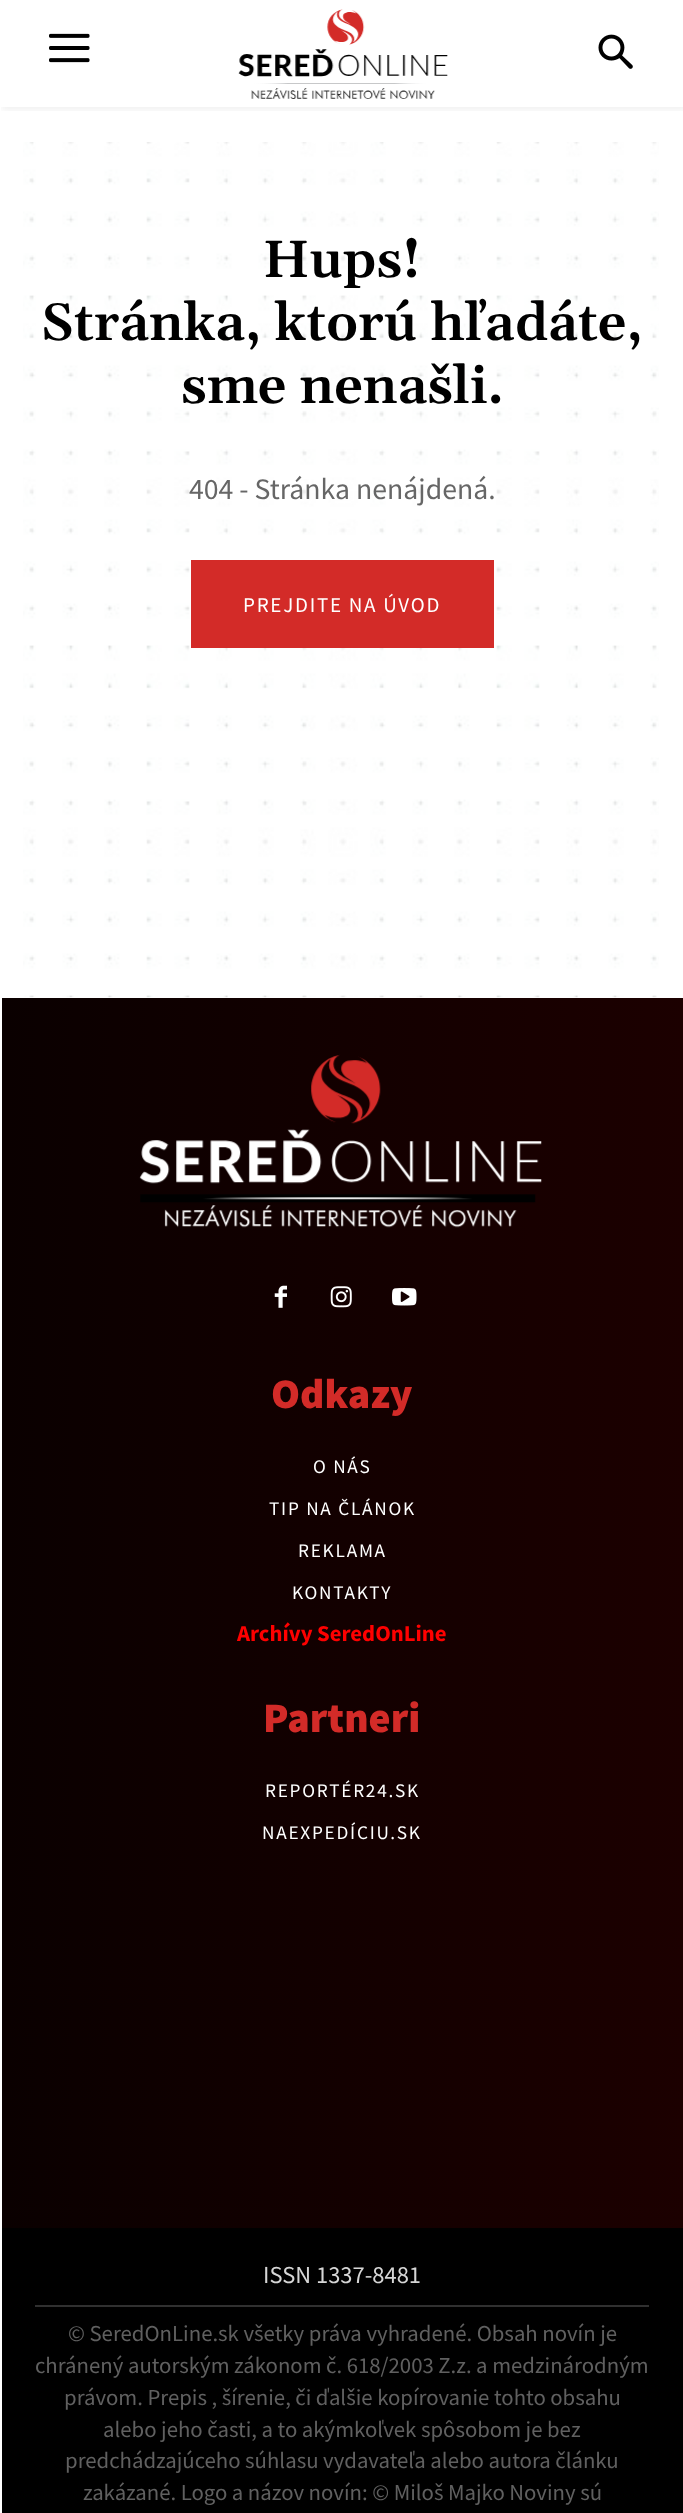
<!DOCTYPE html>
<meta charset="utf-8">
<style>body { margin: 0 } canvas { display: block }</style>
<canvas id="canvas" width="683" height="2513"></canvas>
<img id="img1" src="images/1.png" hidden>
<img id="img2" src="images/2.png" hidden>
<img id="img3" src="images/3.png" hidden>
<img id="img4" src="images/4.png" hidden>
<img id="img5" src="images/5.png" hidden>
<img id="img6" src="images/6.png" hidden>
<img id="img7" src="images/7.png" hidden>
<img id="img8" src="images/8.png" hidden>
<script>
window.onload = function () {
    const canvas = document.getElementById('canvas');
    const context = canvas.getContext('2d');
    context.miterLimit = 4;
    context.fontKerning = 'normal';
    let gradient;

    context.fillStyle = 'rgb(255, 255, 255)';
    context.fillRect(0, 0, 683, 2513);
    context.drawImage(document.getElementById('img1'), 49, 33, 41, 30);
    context.drawImage(document.getElementById('img2'), 238, 9, 210, 90);
    context.drawImage(document.getElementById('img3'), 598, 34, 35, 35);
    context.save();
    context.beginPath();
    context.rect(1, 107, 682, 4);
    context.clip();
    context.fillStyle = 'rgba(0, 0, 0, 0.06)';
    context.filter = 'blur(3.5px)';
    context.beginPath();
    context.rect(2, 4, 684, 106);
    context.fill();
    context.filter = 'none';
    context.restore();
    context.drawImage(document.getElementById('img4'), 23, 142, 636, 856);
    context.fillStyle = 'rgb(211, 43, 40)';
    context.fillRect(191, 560, 303, 88);
    gradient = context.createLinearGradient(0.9, 1613, 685, 1613);
    gradient.addColorStop(0, 'rgb(10, 0, 0)');
    gradient.addColorStop(1, 'rgb(28, 0, 0)');
    context.fillStyle = gradient;
    context.fillRect(2, 998, 681, 1230);
    context.drawImage(document.getElementById('img5'), 139, 1054, 403, 174);
    context.drawImage(document.getElementById('img6'), 274, 1285, 13, 23);
    context.drawImage(document.getElementById('img7'), 330, 1286, 22, 22);
    context.drawImage(document.getElementById('img8'), 392, 1288, 25, 18);
    context.fillStyle = 'rgb(0, 0, 0)';
    context.fillRect(2, 2228, 681, 285);
    context.fillStyle = 'rgb(48, 48, 48)';
    context.fillRect(35, 2305, 614, 2);
    context.font = '600 52.5px Gelasio';
    context.fillStyle = 'rgb(0, 0, 0)';
    context.fillText('Hups!', 263, 277);
    context.fillText('Stránka, ktorú hľadáte,', 41, 340);
    context.fillText('sme nenašli.', 181, 403);
    context.font = '29.75px Source Sans Pro';
    context.fillStyle = 'rgb(102, 102, 102)';
    context.fillText('404 - Stránka nenájdená.', 189, 499);
    context.letterSpacing = '1.75px';
    context.font = '21px Source Sans Pro';
    context.fillStyle = 'rgb(255, 255, 255)';
    context.fillText('PREJDITE NA ÚVOD', 243, 612);
    context.letterSpacing = '0px';
    context.font = '900 42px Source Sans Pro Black';
    context.fillStyle = 'rgb(211, 43, 40)';
    context.fillText('Odkazy', 271, 1408);
    context.letterSpacing = '1.75px';
    context.font = '19.25px Source Sans Pro';
    context.fillStyle = 'rgb(255, 255, 255)';
    context.fillText('O NÁS', 313, 1473);
    context.fillText('TIP NA ČLÁNOK', 269, 1515);
    context.fillText('REKLAMA', 298, 1557);
    context.fillText('KONTAKTY', 292, 1599);
    context.letterSpacing = '0px';
    context.font = 'bold 22.75px Source Sans Pro';
    context.fillStyle = 'rgb(255, 0, 0)';
    context.fillText('Archívy SeredOnLine', 237, 1641);
    context.font = '900 42px Source Sans Pro Black';
    context.fillStyle = 'rgb(211, 43, 40)';
    context.fillText('Partneri', 263, 1732);
    context.letterSpacing = '1.75px';
    context.font = '19.25px Source Sans Pro';
    context.fillStyle = 'rgb(255, 255, 255)';
    context.fillText('REPORTÉR24.SK', 265, 1797);
    context.fillText('NAEXPEDÍCIU.SK', 262, 1839);
    context.letterSpacing = '0px';
    context.font = '24.5px Source Sans Pro';
    context.fillStyle = 'rgb(214, 214, 214)';
    context.fillText('ISSN 1337-8481', 263, 2283);
    context.font = '22.75px Source Sans Pro';
    context.fillStyle = 'rgb(96, 96, 96)';
    context.fillText('© SeredOnLine.sk všetky práva vyhradené. Obsah novín je', 68, 2341);
    context.fillText('chránený autorským zákonom č. 618/2003 Z.z. a medzinárodným', 35, 2373);
    context.fillText('právom. Prepis , šírenie, či ďalšie kopírovanie tohto obsahu', 64, 2405);
    context.fillText('alebo jeho časti, a to akýmkoľvek spôsobom je bez', 103, 2437);
    context.fillText('predchádzajúceho súhlasu vydavateľa alebo autora článku', 65, 2468);
    context.fillText('zakázané. Logo a názov novín: © Miloš Majko Noviny sú', 83, 2500);
};
</script>
